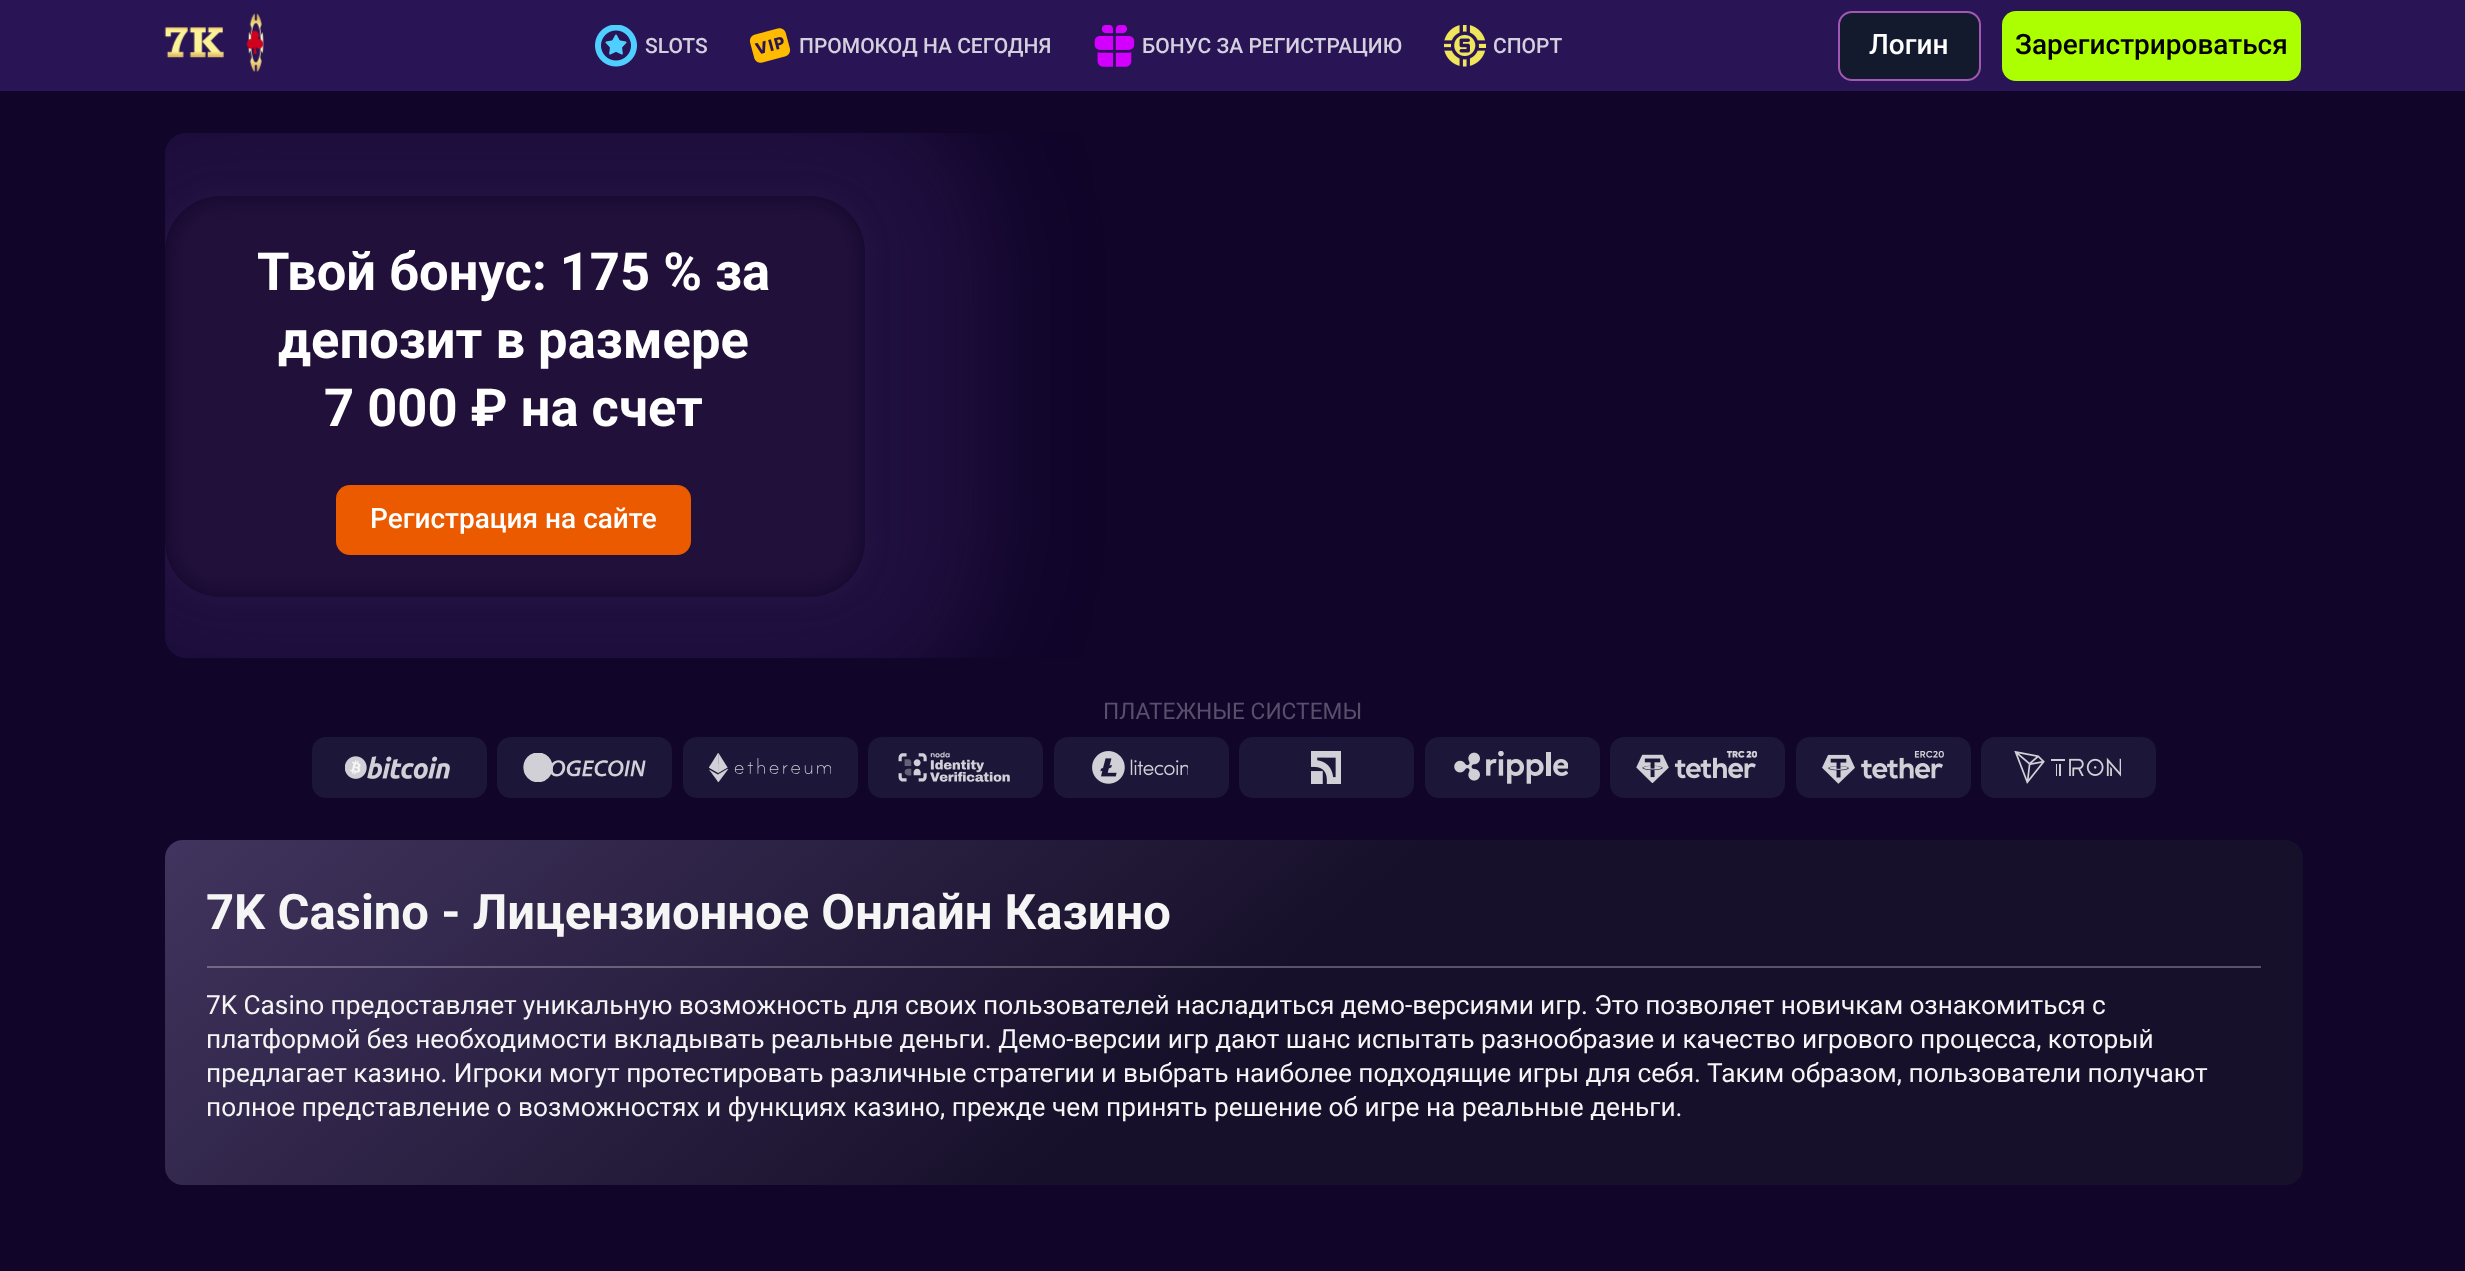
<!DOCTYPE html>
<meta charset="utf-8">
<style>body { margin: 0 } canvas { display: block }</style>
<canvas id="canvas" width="2465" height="1271"></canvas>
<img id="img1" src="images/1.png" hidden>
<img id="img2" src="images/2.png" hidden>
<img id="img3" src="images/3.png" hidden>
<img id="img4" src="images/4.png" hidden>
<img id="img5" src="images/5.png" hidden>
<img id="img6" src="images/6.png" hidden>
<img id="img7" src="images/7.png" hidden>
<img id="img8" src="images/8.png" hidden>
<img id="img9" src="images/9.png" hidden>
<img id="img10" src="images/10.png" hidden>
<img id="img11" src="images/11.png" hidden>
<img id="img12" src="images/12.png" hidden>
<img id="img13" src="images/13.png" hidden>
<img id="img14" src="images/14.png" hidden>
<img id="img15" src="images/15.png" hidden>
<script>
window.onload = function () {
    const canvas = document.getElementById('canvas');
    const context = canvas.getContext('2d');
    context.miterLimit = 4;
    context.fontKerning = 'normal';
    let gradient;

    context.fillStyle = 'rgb(17, 5, 42)';
    context.fillRect(0, 0, 2465, 1271);
    context.save();
    context.beginPath();
    context.roundRect(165, 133, 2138, 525, 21);
    context.clip();
    context.beginPath();
    context.moveTo(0, 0);
    context.lineTo(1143, 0);
    context.lineTo(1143, 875);
    context.lineTo(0, 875);
    context.closePath();
    context.moveTo(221, 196);
    context.lineTo(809, 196);
    context.bezierCurveTo(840, 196, 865, 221, 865, 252);
    context.lineTo(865, 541);
    context.bezierCurveTo(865, 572, 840, 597, 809, 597);
    context.lineTo(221, 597);
    context.bezierCurveTo(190, 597, 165, 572, 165, 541);
    context.lineTo(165, 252);
    context.bezierCurveTo(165, 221, 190, 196, 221, 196);
    context.closePath();
    context.clip('evenodd');
    context.fillStyle = 'rgba(42, 24, 80, 0.56)';
    context.filter = 'blur(51.5px)';
    context.beginPath();
    context.roundRect(42, 74, 945, 645, 179);
    context.fill();
    context.filter = 'none';
    context.restore();
    context.fillStyle = 'rgb(41, 20, 86)';
    context.fillRect(0, 0, 2465, 91);
    context.drawImage(document.getElementById('img1'), 164, 13, 100, 60);
    context.drawImage(document.getElementById('img2'), 595, 25, 42, 42);
    context.drawImage(document.getElementById('img3'), 749, 28, 42, 35);
    context.drawImage(document.getElementById('img4'), 1094, 25, 41, 42);
    context.drawImage(document.getElementById('img5'), 1444, 25, 42, 42);
    context.fillStyle = 'rgb(19, 26, 45)';
    context.beginPath();
    context.roundRect(1839, 12, 141, 68, 13);
    context.fill();
    context.strokeStyle = 'rgb(161, 88, 179)';
    context.lineWidth = 2;
    context.stroke();
    context.fillStyle = 'rgb(172, 255, 0)';
    context.beginPath();
    context.roundRect(2002, 11, 299, 70, 14);
    context.fill();
    context.save();
    context.beginPath();
    context.rect(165, 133, 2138, 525);
    context.clip();
    context.fillStyle = 'rgba(46, 25, 72, 0.54)';
    context.filter = 'blur(10.5px)';
    context.beginPath();
    context.roundRect(165, 196, 700, 401, 56);
    context.fill();
    context.filter = 'none';
    context.restore();
    context.fillStyle = 'rgb(236, 90, 0)';
    context.beginPath();
    context.roundRect(336, 485, 355, 70, 14);
    context.fill();
    context.fillStyle = 'rgb(28, 23, 57)';
    context.beginPath();
    context.roundRect(312, 737, 175, 61, 14);
    context.fill();
    context.drawImage(document.getElementById('img6'), 345, 756, 105, 23);
    context.beginPath();
    context.roundRect(497, 737, 175, 61, 14);
    context.fill();
    context.drawImage(document.getElementById('img7'), 523, 753, 123, 29);
    context.beginPath();
    context.roundRect(683, 737, 175, 61, 14);
    context.fill();
    context.drawImage(document.getElementById('img8'), 709, 753, 122, 29);
    context.beginPath();
    context.roundRect(868, 737, 175, 61, 14);
    context.fill();
    context.drawImage(document.getElementById('img9'), 898, 751, 112, 31);
    context.beginPath();
    context.roundRect(1054, 737, 175, 61, 14);
    context.fill();
    context.drawImage(document.getElementById('img10'), 1092, 751, 96, 33);
    context.beginPath();
    context.roundRect(1239, 737, 175, 61, 14);
    context.fill();
    context.drawImage(document.getElementById('img11'), 1311, 751, 30, 33);
    context.beginPath();
    context.roundRect(1425, 737, 175, 61, 14);
    context.fill();
    context.drawImage(document.getElementById('img12'), 1454, 751, 114, 33);
    context.beginPath();
    context.roundRect(1610, 737, 175, 61, 14);
    context.fill();
    context.drawImage(document.getElementById('img13'), 1636, 751, 121, 32);
    context.beginPath();
    context.roundRect(1796, 737, 175, 61, 14);
    context.fill();
    context.drawImage(document.getElementById('img14'), 1822, 751, 122, 33);
    context.beginPath();
    context.roundRect(1981, 737, 175, 61, 14);
    context.fill();
    context.drawImage(document.getElementById('img15'), 2014, 751, 107, 33);
    gradient = context.createLinearGradient(1760, 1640, 707, 385);
    gradient.addColorStop(0.5, 'rgb(23, 16, 42)');
    gradient.addColorStop(1, 'rgb(65, 52, 94)');
    context.fillStyle = gradient;
    context.beginPath();
    context.roundRect(165, 840, 2138, 345, 18);
    context.fill();
    gradient = context.createLinearGradient(1760, 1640, 707, 385);
    gradient.addColorStop(0.5, 'rgb(88, 83, 102)');
    gradient.addColorStop(1, 'rgb(118, 109, 139)');
    context.fillStyle = gradient;
    context.fillRect(207, 966, 2054, 2);
    context.font = '500 21px Roboto';
    context.fillStyle = 'rgb(212, 208, 221)';
    context.fillText('SLOTS', 645, 53);
    context.fillText('ПРОМОКОД НА СЕГОДНЯ', 799, 53);
    context.fillText('БОНУС ЗА РЕГИСТРАЦИЮ', 1142, 53);
    context.fillText('СПОРТ', 1493, 53);
    context.font = '500 28px Roboto';
    context.fillStyle = 'rgb(255, 255, 255)';
    context.fillText('Логин', 1869, 54);
    context.fillStyle = 'rgb(0, 0, 0)';
    context.fillText('Зарегистрироваться', 2015, 54);
    context.font = 'bold 52.5px Roboto';
    context.fillStyle = 'rgb(255, 255, 255)';
    context.fillText('Твой бонус: 175 % за', 257, 290);
    context.fillText('депозит в размере', 278, 358);
    context.fillText('7 000 ₽ на счет', 324, 426);
    context.font = '500 28px Roboto';
    context.fillText('Регистрация на сайте', 370, 528);
    context.font = '22.75px Roboto';
    context.fillStyle = 'rgb(88, 80, 106)';
    context.fillText('ПЛАТЕЖНЫЕ СИСТЕМЫ', 1103, 719);
    context.font = 'bold 49px Roboto';
    context.fillStyle = 'rgb(245, 245, 245)';
    context.fillText('7K Casino - Лицензионное Онлайн Казино', 206, 929);
    context.wordSpacing = '-0.25px';
    context.font = '26.25px Roboto';
    context.fillText('7K Casino предоставляет уникальную возможность для своих пользователей насладиться демо-версиями игр. Это позволяет новичкам ознакомиться с', 206, 1014);
    context.wordSpacing = '0px';
    context.fillText('платформой без необходимости вкладывать реальные деньги. Демо-версии игр дают шанс испытать разнообразие и качество игрового процесса, который', 206, 1048);
    context.fillText('предлагает казино. Игроки могут протестировать различные стратегии и выбрать наиболее подходящие игры для себя. Таким образом, пользователи получают', 206, 1082);
    context.fillText('полное представление о возможностях и функциях казино, прежде чем принять решение об игре на реальные деньги.', 206, 1116);
};
</script>
